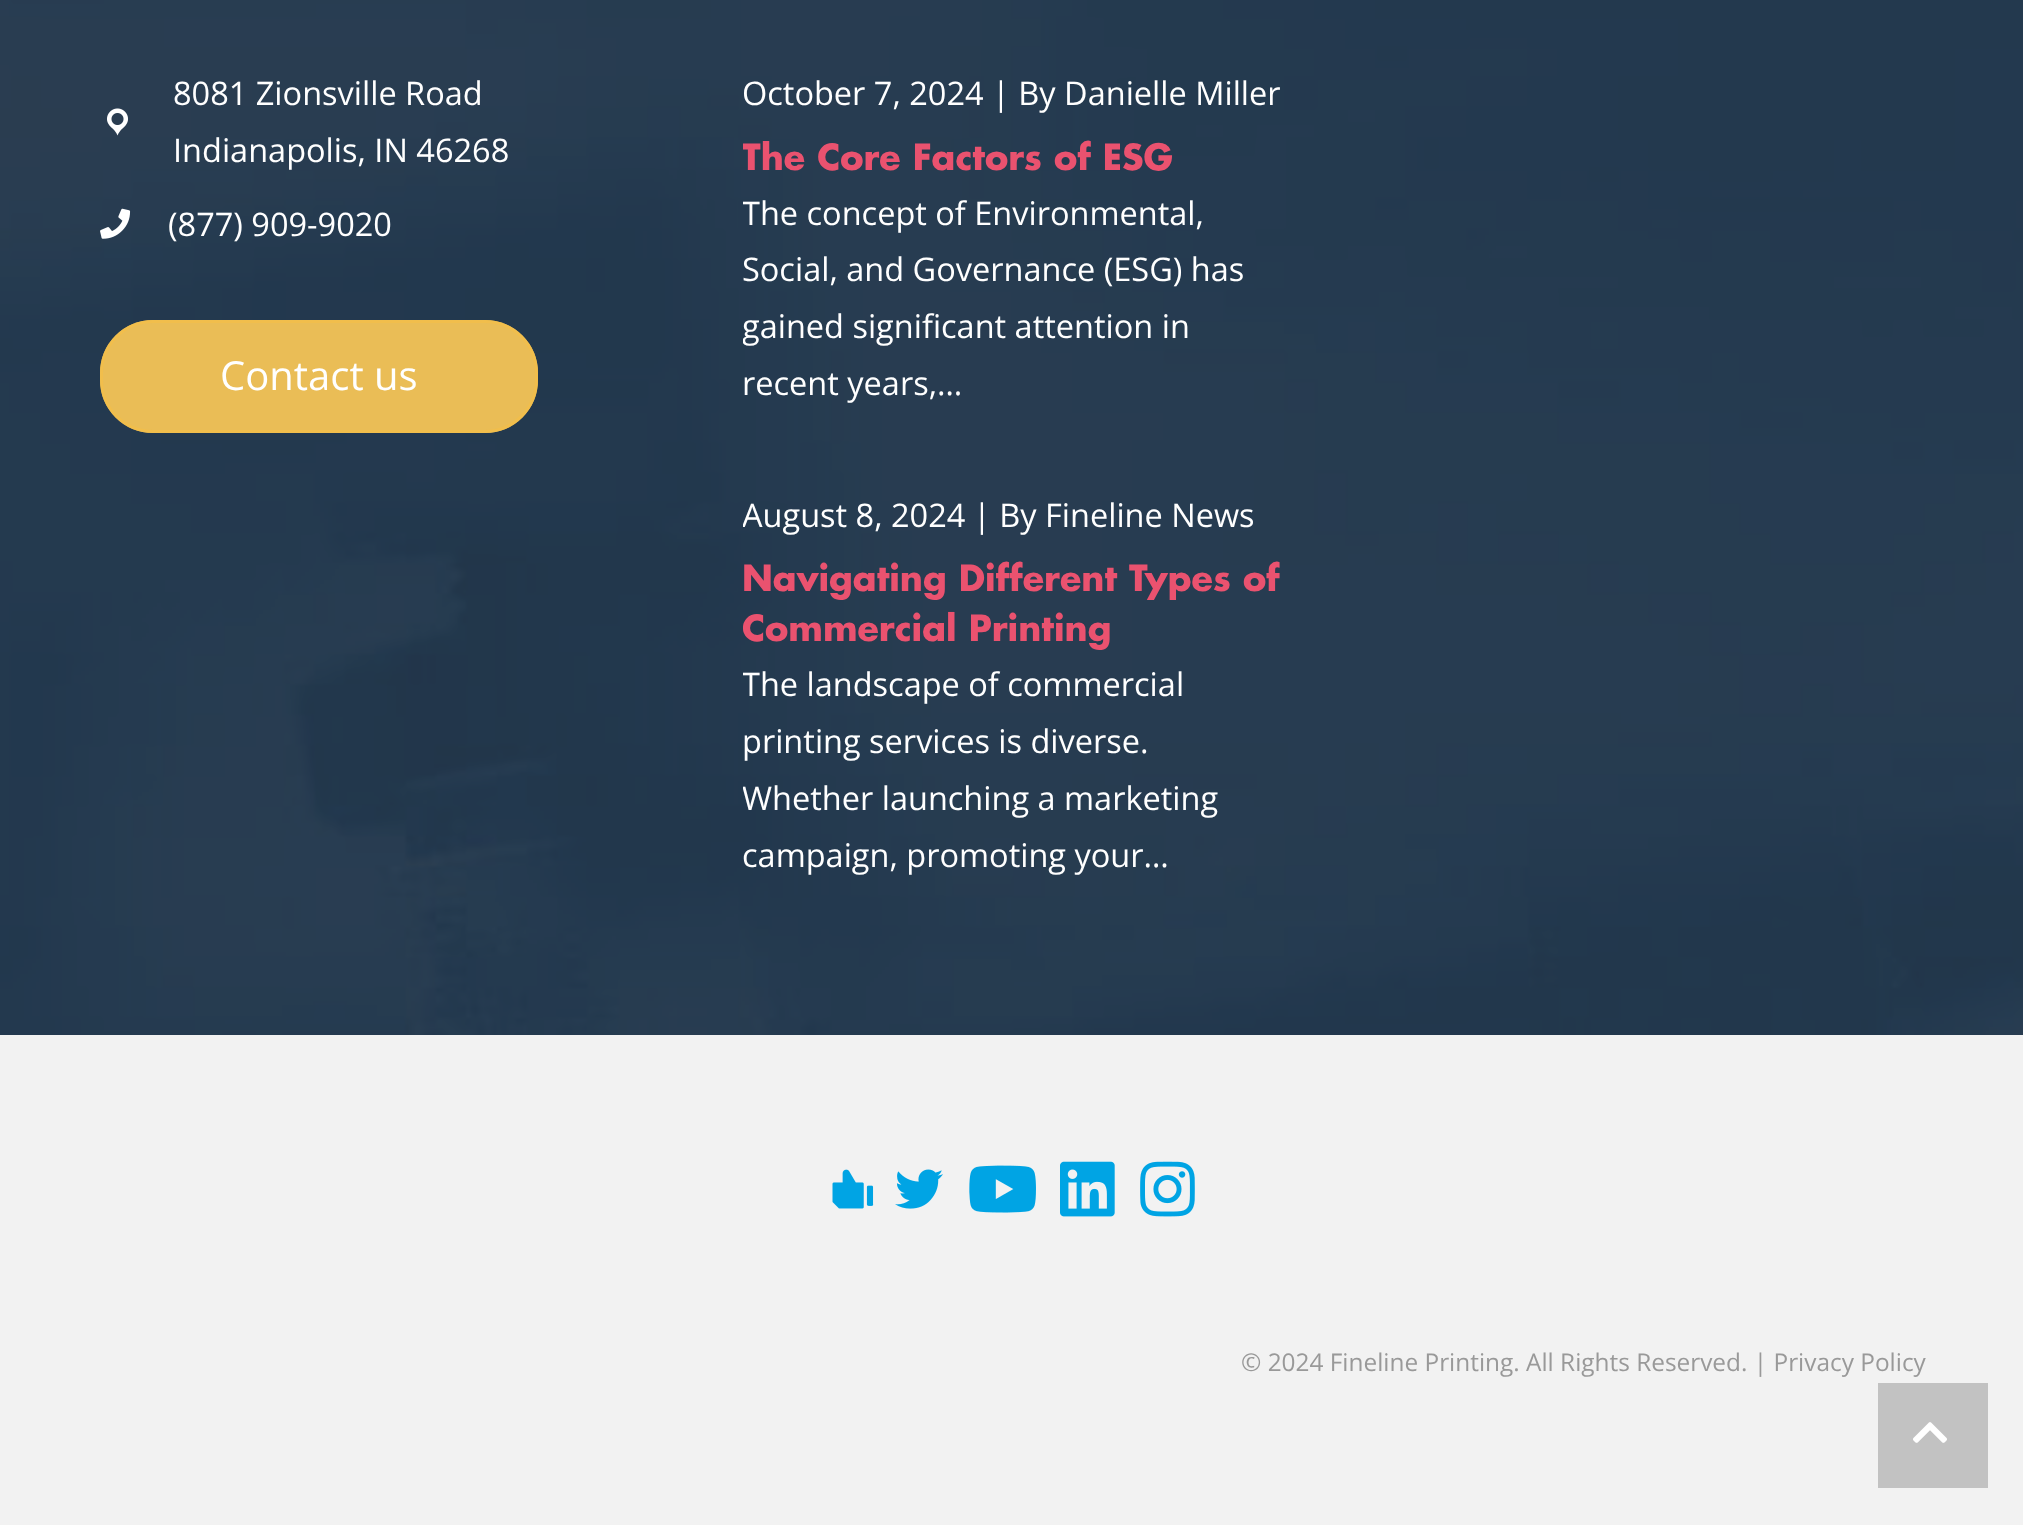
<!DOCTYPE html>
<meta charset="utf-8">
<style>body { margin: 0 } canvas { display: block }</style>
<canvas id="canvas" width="2023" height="1525"></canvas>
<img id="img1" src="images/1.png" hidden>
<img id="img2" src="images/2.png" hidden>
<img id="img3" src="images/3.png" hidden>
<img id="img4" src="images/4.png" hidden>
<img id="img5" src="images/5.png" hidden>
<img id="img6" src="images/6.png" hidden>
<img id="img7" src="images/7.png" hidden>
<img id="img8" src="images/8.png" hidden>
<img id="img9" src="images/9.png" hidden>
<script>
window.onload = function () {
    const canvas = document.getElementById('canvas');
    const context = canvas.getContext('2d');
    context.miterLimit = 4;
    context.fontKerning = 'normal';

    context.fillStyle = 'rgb(242, 242, 242)';
    context.fillRect(0, 0, 2023, 1525);
    context.drawImage(document.getElementById('img1'), 0, 0, 2023, 1035);
    context.drawImage(document.getElementById('img2'), 107, 108, 21, 28);
    context.drawImage(document.getElementById('img3'), 100, 208, 31, 31);
    context.fillStyle = 'rgb(234, 189, 86)';
    context.beginPath();
    context.roundRect(100, 320, 438, 113, 53);
    context.fill();
    context.beginPath();
    context.roundRect(101.5, 321.5, 435, 110, 51.5);
    context.strokeStyle = 'rgba(242, 190, 75, 0.91)';
    context.lineWidth = 3;
    context.stroke();
    context.drawImage(document.getElementById('img4'), 832, 1169, 42, 40);
    context.drawImage(document.getElementById('img5'), 895, 1169, 48, 40);
    context.drawImage(document.getElementById('img6'), 969, 1165, 67, 48);
    context.drawImage(document.getElementById('img7'), 1060, 1161, 55, 56);
    context.drawImage(document.getElementById('img8'), 1140, 1161, 55, 56);
    context.fillStyle = 'rgb(194, 194, 194)';
    context.fillRect(1878, 1383, 110, 105);
    context.drawImage(document.getElementById('img9'), 1913, 1422, 34, 21);
    context.font = '32.5px Open Sans';
    context.fillStyle = 'rgb(255, 255, 255)';
    context.fillText('8081 Zionsville Road', 173, 105);
    context.fillText('Indianapolis, IN 46268', 173, 162);
    context.fillText('(877) 909-9020', 168, 236);
    context.font = '40px Open Sans';
    context.fillText('Contact us', 220, 390);
    context.font = '32.5px Open Sans';
    context.fillText('October 7, 2024 | By Danielle Miller', 742, 105);
    context.save();
    context.beginPath();
    context.rect(743, 65, 540, 398);
    context.clip();
    context.font = 'bold 35px Futura';
    context.fillStyle = 'rgb(234, 82, 111)';
    context.fillText('The Core Factors of ESG', 742, 170);
    context.font = '32.5px Open Sans';
    context.fillStyle = 'rgb(255, 255, 255)';
    context.fillText('The concept of Environmental,', 742, 225);
    context.restore();
    context.fillText('Social, and Governance (ESG) has', 742, 281);
    context.save();
    context.beginPath();
    context.rect(743, 65, 540, 398);
    context.clip();
    context.fillText('gained significant attention in', 742, 338);
    context.restore();
    context.fillText('recent years,…', 742, 395);
    context.save();
    context.beginPath();
    context.rect(743, 488, 540, 447);
    context.clip();
    context.fillText('August 8, 2024', 742, 527);
    context.restore();
    context.fillText('| By Fineline News', 973, 527);
    context.font = 'bold 35px Futura';
    context.fillStyle = 'rgb(234, 82, 111)';
    context.fillText('Navigating Different Types of', 742, 591);
    context.save();
    context.beginPath();
    context.rect(743, 488, 540, 447);
    context.clip();
    context.fillText('Commercial Printing', 742, 641);
    context.font = '32.5px Open Sans';
    context.fillStyle = 'rgb(255, 255, 255)';
    context.fillText('The landscape of commercial', 742, 696);
    context.restore();
    context.font = '32.5px Open Sans';
    context.fillStyle = 'rgb(255, 255, 255)';
    context.fillText('printing services is diverse.', 742, 753);
    context.save();
    context.beginPath();
    context.rect(743, 488, 540, 447);
    context.clip();
    context.fillText('Whether launching a marketing', 742, 810);
    context.restore();
    context.fillText('campaign, promoting your…', 742, 867);
    context.font = '24.4px Open Sans';
    context.fillStyle = 'rgb(153, 153, 153)';
    context.fillText('© 2024 Fineline Printing. All Rights Reserved. | Privacy Policy', 1241, 1371);
};
</script>
